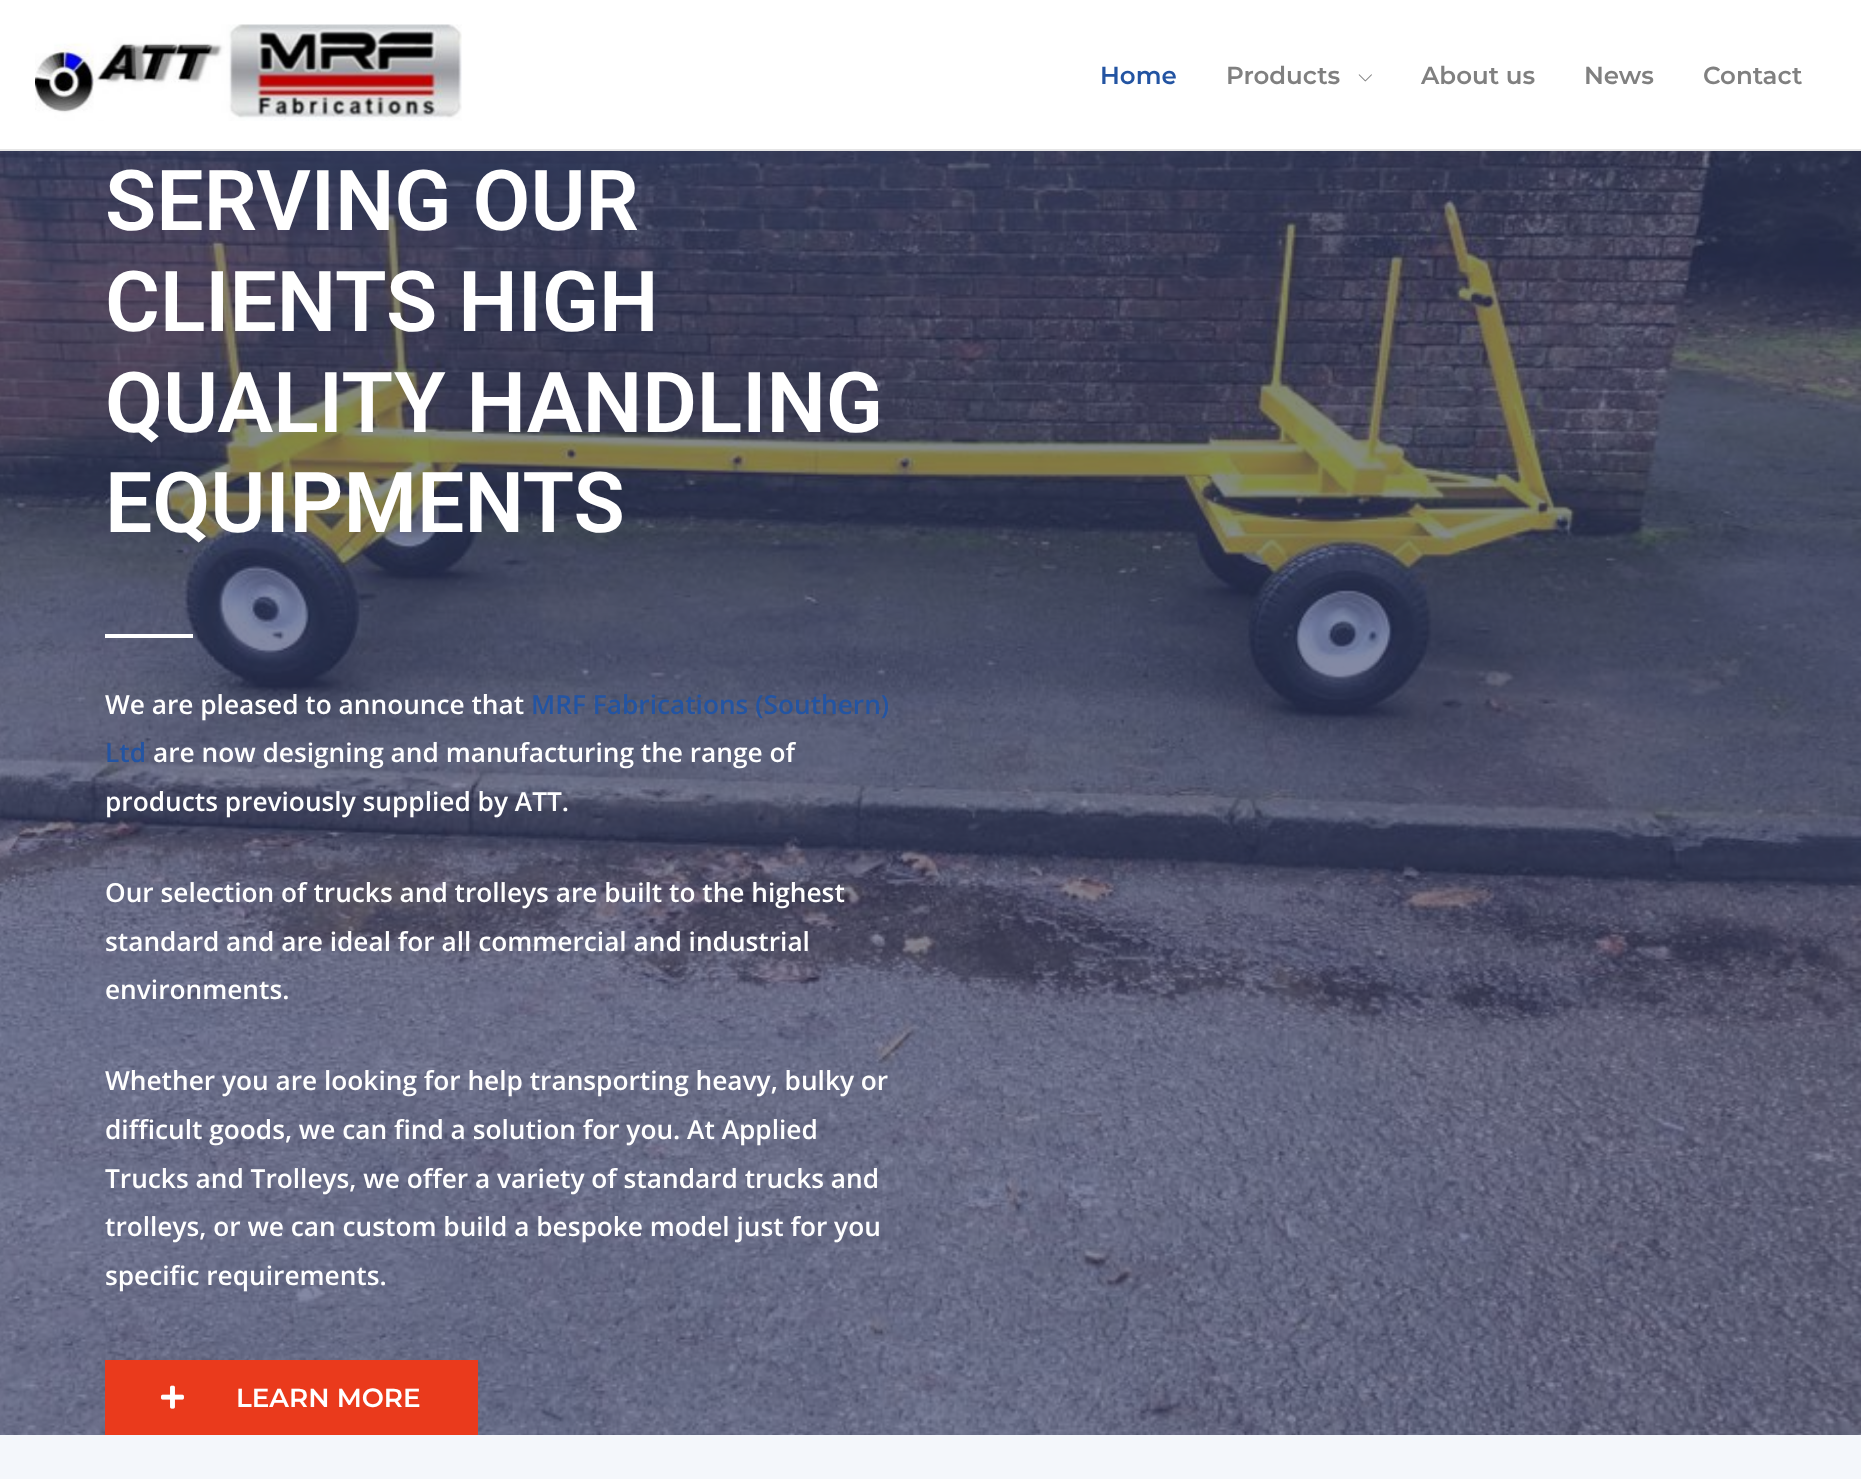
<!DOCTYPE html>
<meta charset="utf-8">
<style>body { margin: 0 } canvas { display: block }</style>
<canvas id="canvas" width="1861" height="1479"></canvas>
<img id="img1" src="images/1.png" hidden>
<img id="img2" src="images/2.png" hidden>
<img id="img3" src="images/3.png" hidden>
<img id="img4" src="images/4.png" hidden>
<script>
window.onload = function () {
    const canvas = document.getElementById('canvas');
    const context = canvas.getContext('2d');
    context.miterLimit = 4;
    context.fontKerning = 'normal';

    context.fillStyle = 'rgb(255, 255, 255)';
    context.fillRect(0, 0, 1861, 1479);
    context.fillStyle = 'rgb(230, 230, 230)';
    context.fillRect(0, 149, 1861, 2);
    context.drawImage(document.getElementById('img1'), 35, 24, 427, 97);
    context.drawImage(document.getElementById('img2'), 1358, 74, 14, 8);
    context.drawImage(document.getElementById('img3'), 0, 151, 1861, 1284);
    context.fillStyle = 'rgb(255, 255, 255)';
    context.fillRect(105, 634, 88, 4);
    context.fillStyle = 'rgb(234, 58, 28)';
    context.fillRect(105, 1360, 373, 75);
    context.drawImage(document.getElementById('img4'), 161, 1385, 23, 24);
    context.fillStyle = 'rgb(244, 247, 251)';
    context.fillRect(0, 1435, 1861, 44);
    context.font = '600 24.5px Montserrat';
    context.fillStyle = 'rgb(35, 84, 162)';
    context.fillText('Home', 1100, 84);
    context.fillStyle = 'rgb(128, 128, 128)';
    context.fillText('Products', 1226, 84);
    context.fillText('About us', 1421, 84);
    context.fillText('News', 1584, 84);
    context.fillText('Contact', 1703, 84);
    context.font = '600 84px Roboto';
    context.fillStyle = 'rgb(255, 255, 255)';
    context.fillText('SERVING OUR', 105, 230);
    context.fillText('CLIENTS HIGH', 105, 331);
    context.fillText('QUALITY HANDLING', 105, 432);
    context.fillText('EQUIPMENTS', 105, 532);
    context.font = '600 26.25px Open Sans';
    context.fillText('We are pleased to announce that', 105, 714);
    context.fillStyle = 'rgb(35, 84, 162)';
    context.fillText('MRF Fabrications (Southern)', 531, 714);
    context.fillText('Ltd', 105, 762);
    context.fillStyle = 'rgb(255, 255, 255)';
    context.fillText('are now designing and manufacturing the range of', 153, 762);
    context.fillText('products previously supplied by ATT.', 105, 811);
    context.fillText('Our selection of trucks and trolleys are built to the highest', 105, 902);
    context.fillText('standard and are ideal for all commercial and industrial', 105, 951);
    context.fillText('environments.', 105, 999);
    context.fillText('Whether you are looking for help transporting heavy, bulky or', 105, 1090);
    context.fillText('difficult goods, we can find a solution for you. At Applied', 105, 1139);
    context.fillText('Trucks and Trolleys, we offer a variety of standard trucks and', 105, 1188);
    context.fillText('trolleys, or we can custom build a bespoke model just for you', 105, 1236);
    context.fillText('specific requirements.', 105, 1285);
    context.font = '600 26.25px Montserrat';
    context.fillText('LEARN MORE', 236, 1407);
};
</script>
